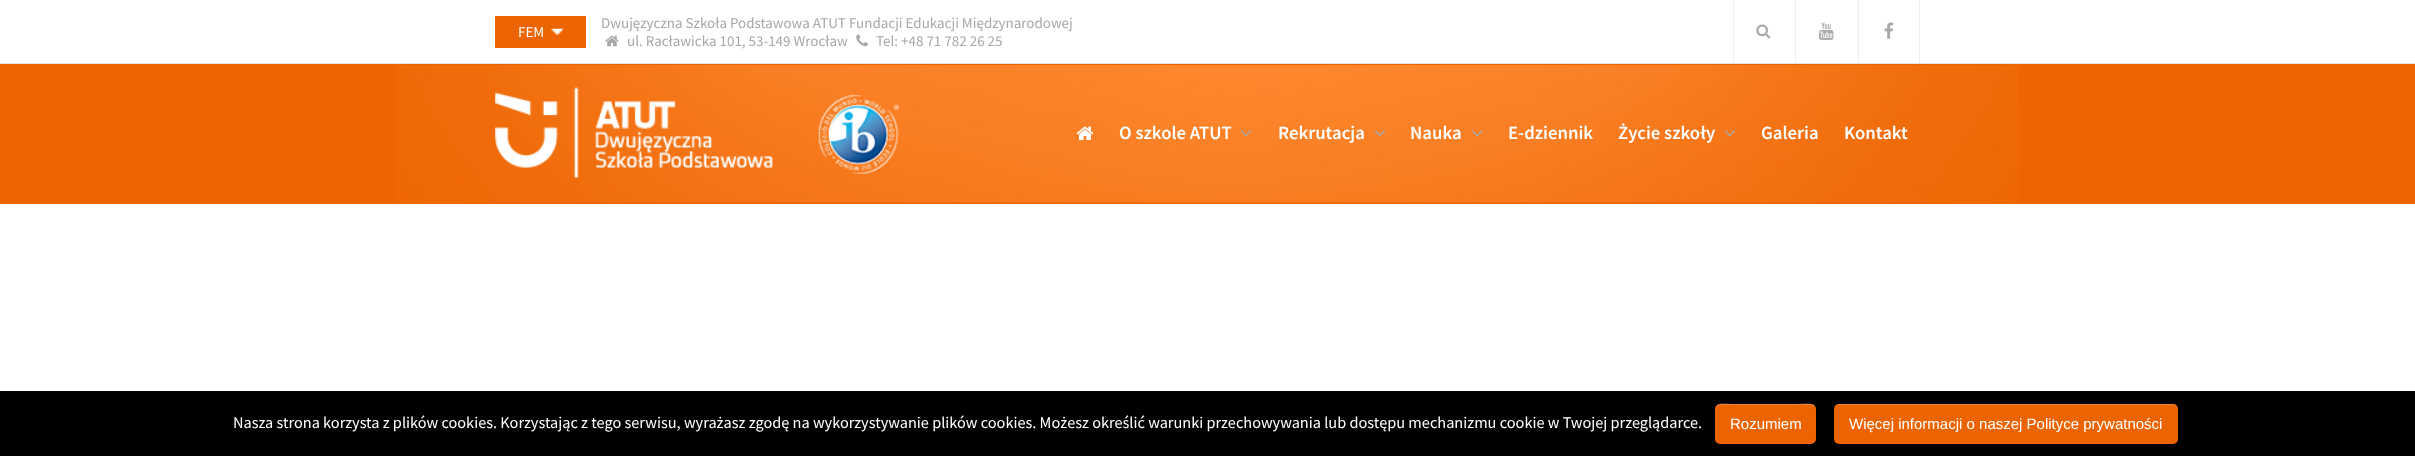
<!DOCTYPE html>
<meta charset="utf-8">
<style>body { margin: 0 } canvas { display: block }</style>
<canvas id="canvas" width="2415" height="456"></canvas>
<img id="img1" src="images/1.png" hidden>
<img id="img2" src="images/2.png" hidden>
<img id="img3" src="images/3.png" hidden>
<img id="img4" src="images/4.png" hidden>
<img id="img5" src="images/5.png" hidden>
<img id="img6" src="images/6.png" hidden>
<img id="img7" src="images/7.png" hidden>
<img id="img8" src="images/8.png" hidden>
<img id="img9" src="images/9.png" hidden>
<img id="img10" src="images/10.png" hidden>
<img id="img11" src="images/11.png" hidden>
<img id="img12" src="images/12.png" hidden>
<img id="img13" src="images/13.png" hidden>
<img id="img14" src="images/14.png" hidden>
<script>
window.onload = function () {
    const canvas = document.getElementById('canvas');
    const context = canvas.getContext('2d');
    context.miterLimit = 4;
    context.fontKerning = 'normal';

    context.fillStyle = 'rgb(255, 255, 255)';
    context.fillRect(0, 0, 2415, 456);
    context.fillStyle = 'rgb(226, 226, 226)';
    context.fillRect(0, 63, 2415, 1);
    context.fillStyle = 'rgb(237, 101, 2)';
    context.fillRect(495, 16, 91, 32);
    context.drawImage(document.getElementById('img1'), 551, 28, 13, 7);
    context.drawImage(document.getElementById('img2'), 605, 35, 14, 12);
    context.drawImage(document.getElementById('img3'), 856, 34, 12, 13);
    context.fillStyle = 'rgb(238, 238, 238)';
    context.fillRect(1733, 0, 1, 63);
    context.drawImage(document.getElementById('img4'), 1756, 24, 15, 15);
    context.fillStyle = 'rgb(237, 237, 237)';
    context.fillRect(1795, 0, 1, 63);
    context.drawImage(document.getElementById('img5'), 1819, 22, 15, 18);
    context.fillRect(1919, 0, 1, 63);
    context.fillRect(1858, 0, 1, 63);
    context.drawImage(document.getElementById('img6'), 1884, 22, 10, 17);
    context.fillStyle = 'rgb(237, 101, 2)';
    context.fillRect(0, 65, 2415, 139);
    context.drawImage(document.getElementById('img7'), 396, 65, 1623, 138);
    context.fillStyle = 'rgb(236, 100, 0)';
    context.fillRect(0, 64, 2415, 1);
    context.drawImage(document.getElementById('img8'), 495, 87, 278, 91);
    context.drawImage(document.getElementById('img9'), 818, 95, 81, 79);
    context.drawImage(document.getElementById('img10'), 1076, 126, 18, 14);
    context.drawImage(document.getElementById('img11'), 1240, 130, 12, 7);
    context.drawImage(document.getElementById('img12'), 1374, 130, 11, 7);
    context.drawImage(document.getElementById('img13'), 1472, 130, 11, 7);
    context.drawImage(document.getElementById('img14'), 1724, 130, 11, 7);
    context.fillStyle = 'rgb(0, 0, 0)';
    context.fillRect(0, 391, 2415, 65);
    context.fillStyle = 'rgb(236, 100, 0)';
    context.beginPath();
    context.roundRect(1715, 404, 101, 40, 5);
    context.fill();
    context.fillStyle = 'rgba(255, 255, 255, 0.2)';
    context.beginPath();
    context.moveTo(1720, 405);
    context.lineTo(1811, 405);
    context.bezierCurveTo(1814, 405, 1816, 407, 1816, 410);
    context.bezierCurveTo(1816, 400, 1801, 404, 1796, 404);
    context.lineTo(1735, 404);
    context.bezierCurveTo(1730, 404, 1715, 400, 1715, 410);
    context.bezierCurveTo(1715, 407, 1717, 405, 1720, 405);
    context.closePath();
    context.fill();
    context.fillStyle = 'rgb(236, 100, 0)';
    context.beginPath();
    context.roundRect(1834, 404, 344, 40, 5);
    context.fill();
    context.fillStyle = 'rgba(255, 255, 255, 0.2)';
    context.beginPath();
    context.moveTo(1839, 405);
    context.lineTo(2172, 405);
    context.bezierCurveTo(2175, 405, 2178, 407, 2178, 410);
    context.bezierCurveTo(2178, 407, 2176, 404, 2173, 404);
    context.lineTo(1839, 404);
    context.bezierCurveTo(1836, 404, 1834, 407, 1834, 410);
    context.bezierCurveTo(1834, 407, 1836, 405, 1839, 405);
    context.closePath();
    context.fill();
    context.font = '15px Source Sans Pro';
    context.fillStyle = 'rgb(255, 255, 255)';
    context.fillText('FEM', 518, 37);
    context.fillStyle = 'rgb(168, 168, 168)';
    context.fillText('Dwujęzyczna Szkoła Podstawowa ATUT Fundacji Edukacji Międzynarodowej', 601, 28);
    context.fillText('ul. Racławicka 101, 53-149 Wrocław', 627, 46);
    context.fillText('Tel: +48 71 782 26 25', 876, 46);
    context.font = '600 18.75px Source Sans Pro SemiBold';
    context.fillStyle = 'rgb(255, 255, 255)';
    context.fillText('O szkole ATUT', 1119, 139);
    context.fillText('Rekrutacja', 1278, 139);
    context.fillText('Nauka', 1410, 139);
    context.fillText('E-dziennik', 1508, 139);
    context.fillText('Życie szkoły', 1618, 139);
    context.fillText('Galeria', 1761, 139);
    context.fillText('Kontakt', 1844, 139);
    context.font = '16.25px Source Sans Pro';
    context.fillText('Nasza strona korzysta z plików cookies. Korzystając z tego serwisu, wyrażasz zgodę na wykorzystywanie plików cookies. Możesz określić warunki przechowywania lub dostępu mechanizmu cookie w Twojej przeglądarce.', 233, 428);
    context.font = '15px Liberation Sans';
    context.fillText('Rozumiem', 1730, 429);
    context.fillText('Więcej informacji o naszej Polityce prywatności', 1849, 429);
};
</script>
